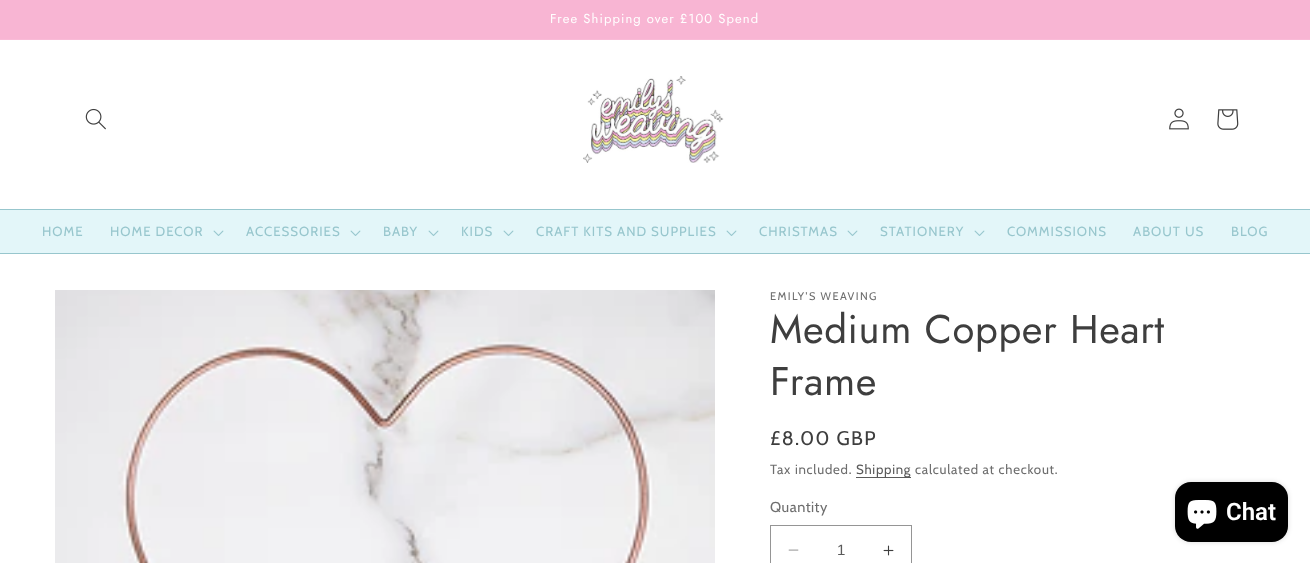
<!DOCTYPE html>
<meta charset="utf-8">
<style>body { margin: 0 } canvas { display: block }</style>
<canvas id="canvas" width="1310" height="563"></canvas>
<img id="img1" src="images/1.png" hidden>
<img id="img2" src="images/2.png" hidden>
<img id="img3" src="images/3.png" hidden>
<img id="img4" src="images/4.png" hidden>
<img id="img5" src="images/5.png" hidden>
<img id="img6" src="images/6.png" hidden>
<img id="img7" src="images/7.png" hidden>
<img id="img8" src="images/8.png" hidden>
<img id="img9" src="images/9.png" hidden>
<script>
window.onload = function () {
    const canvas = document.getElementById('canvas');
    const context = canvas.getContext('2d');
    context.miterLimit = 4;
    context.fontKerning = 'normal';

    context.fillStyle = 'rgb(255, 255, 255)';
    context.fillRect(0, 0, 1310, 563);
    context.fillStyle = 'rgb(248, 181, 211)';
    context.fillRect(0, 0, 1310, 39);
    context.fillStyle = 'rgb(249, 187, 215)';
    context.fillRect(0, 39, 1310, 1);
    context.drawImage(document.getElementById('img1'), 85, 108, 21, 22);
    context.drawImage(document.getElementById('img2'), 583, 76, 141, 87);
    context.drawImage(document.getElementById('img3'), 1169, 108, 20, 22);
    context.drawImage(document.getElementById('img4'), 1217, 109, 22, 21);
    context.fillStyle = 'rgb(227, 246, 249)';
    context.fillRect(0, 210, 1310, 43);
    context.fillStyle = 'rgb(151, 198, 205)';
    context.fillRect(0, 209, 1310, 1);
    context.fillRect(0, 253, 1310, 1);
    context.drawImage(document.getElementById('img5'), 213, 230, 11, 6);
    context.drawImage(document.getElementById('img5'), 350, 230, 11, 6);
    context.drawImage(document.getElementById('img5'), 428, 230, 11, 6);
    context.drawImage(document.getElementById('img5'), 503, 230, 11, 6);
    context.drawImage(document.getElementById('img5'), 726, 230, 11, 6);
    context.drawImage(document.getElementById('img5'), 847, 230, 11, 6);
    context.drawImage(document.getElementById('img5'), 974, 230, 11, 6);
    context.drawImage(document.getElementById('img6'), 55, 290, 660, 273);
    context.fillStyle = 'rgb(91, 91, 91)';
    context.fillRect(856, 477, 55, 1);
    context.drawImage(document.getElementById('img7'), 788, 549, 11, 2);
    context.drawImage(document.getElementById('img8'), 883, 545, 11, 11);
    context.strokeStyle = 'rgb(149, 149, 149)';
    context.strokeRect(770.5, 525.5, 141, 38);
    context.fillStyle = 'rgba(0, 0, 0, 0.15)';
    context.filter = 'blur(2.5px)';
    context.beginPath();
    context.roundRect(1175, 482, 113, 60, 16);
    context.fill();
    context.filter = 'none';
    context.fillStyle = 'rgb(0, 0, 0)';
    context.beginPath();
    context.roundRect(1175, 482, 113, 60, 16);
    context.fill();
    context.drawImage(document.getElementById('img9'), 1187, 500, 30, 29);
    context.letterSpacing = '1.1px';
    context.font = '13px Jost';
    context.fillStyle = 'rgb(255, 255, 255)';
    context.fillText('Free Shipping over £100 Spend', 550, 23);
    context.letterSpacing = '1px';
    context.font = '13.25px Cabin';
    context.fillStyle = 'rgb(151, 198, 205)';
    context.fillText('HOME', 42, 236);
    context.fillText('HOME DECOR', 110, 236);
    context.fillText('ACCESSORIES', 246, 236);
    context.fillText('BABY', 383, 236);
    context.fillText('KIDS', 461, 236);
    context.fillText('CRAFT KITS AND SUPPLIES', 536, 236);
    context.fillText('CHRISTMAS', 759, 236);
    context.fillText('STATIONERY', 880, 236);
    context.fillText('COMMISSIONS', 1007, 236);
    context.fillText('ABOUT US', 1133, 236);
    context.fillText('BLOG', 1231, 236);
    context.letterSpacing = '1.4px';
    context.font = '11px Cabin';
    context.fillStyle = 'rgb(110, 110, 110)';
    context.fillText('EMILY’S WEAVING', 770, 300);
    context.letterSpacing = '0.6px';
    context.font = '40px Jost';
    context.fillStyle = 'rgb(62, 62, 62)';
    context.fillText('Medium Copper Heart', 770, 343);
    context.fillText('Frame', 770, 395);
    context.letterSpacing = '1.4px';
    context.font = '19.75px Cabin';
    context.fillText('£8.00 GBP', 770, 445);
    context.letterSpacing = '0.75px';
    context.font = '13.25px Cabin';
    context.fillStyle = 'rgb(110, 110, 110)';
    context.fillText('Tax included.', 770, 474);
    context.fillStyle = 'rgb(90, 90, 90)';
    context.fillText('Shipping', 856, 474);
    context.fillStyle = 'rgb(110, 110, 110)';
    context.fillText('calculated at checkout.', 915, 474);
    context.letterSpacing = '0.5px';
    context.font = '14.5px Cabin';
    context.fillText('Quantity', 770, 512);
    context.letterSpacing = '0px';
    context.font = '15px Liberation Sans';
    context.fillStyle = 'rgb(90, 90, 90)';
    context.fillText('1', 837, 555);
    context.font = '600 24px Roboto';
    context.fillStyle = 'rgb(255, 255, 255)';
    context.fillText('Chat', 1226, 520);
};
</script>
